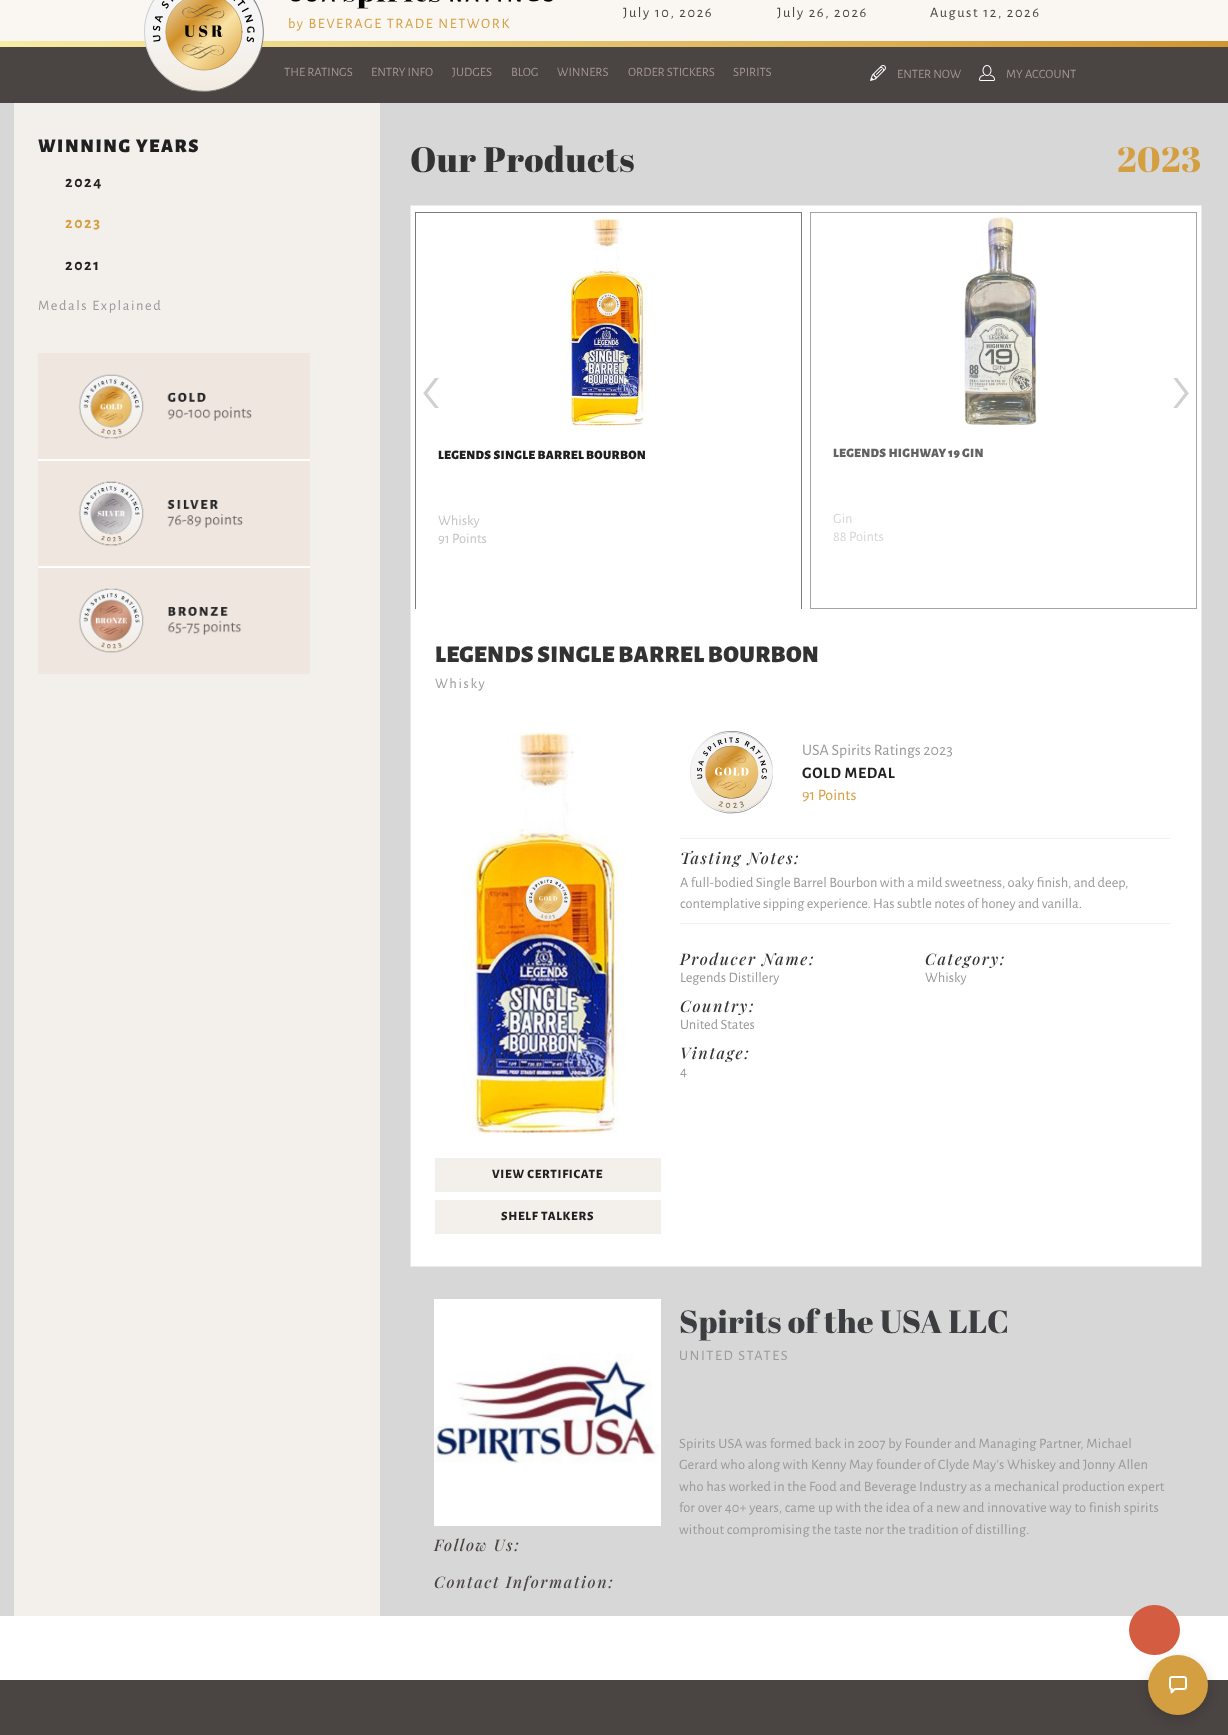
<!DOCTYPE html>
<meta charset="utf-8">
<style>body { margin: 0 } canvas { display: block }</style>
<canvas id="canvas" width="1228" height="1735"></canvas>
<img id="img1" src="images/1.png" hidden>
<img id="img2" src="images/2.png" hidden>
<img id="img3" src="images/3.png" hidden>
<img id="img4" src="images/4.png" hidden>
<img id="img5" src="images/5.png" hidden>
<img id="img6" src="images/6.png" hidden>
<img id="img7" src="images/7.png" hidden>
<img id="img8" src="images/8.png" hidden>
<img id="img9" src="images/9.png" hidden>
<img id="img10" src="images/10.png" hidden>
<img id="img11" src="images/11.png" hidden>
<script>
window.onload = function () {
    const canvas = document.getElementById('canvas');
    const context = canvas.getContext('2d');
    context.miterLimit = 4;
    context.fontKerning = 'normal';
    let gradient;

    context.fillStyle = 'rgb(255, 255, 255)';
    context.fillRect(0, 0, 1228, 1735);
    context.fillStyle = 'rgb(250, 247, 243)';
    context.fillRect(0, 0, 1228, 41);
    gradient = context.createLinearGradient(0, 44, 1228, 44);
    gradient.addColorStop(0, 'rgb(247, 237, 164)');
    gradient.addColorStop(1, 'rgb(208, 150, 50)');
    context.fillStyle = gradient;
    context.fillRect(0, 41, 1228, 6);
    context.fillStyle = 'rgb(74, 68, 66)';
    context.fillRect(0, 47, 1228, 56);
    context.drawImage(document.getElementById('img1'), 144, 0, 120, 92);
    context.drawImage(document.getElementById('img2'), 291, 0, 262, 9);
    context.drawImage(document.getElementById('img3'), 870, 65, 16, 16);
    context.drawImage(document.getElementById('img4'), 979, 65, 16, 16);
    context.fillStyle = 'rgb(215, 215, 215)';
    context.fillRect(0, 103, 1228, 1513);
    context.fillStyle = 'rgb(243, 239, 235)';
    context.fillRect(14, 103, 366, 1513);
    context.drawImage(document.getElementById('img5'), 38, 353, 272, 321);
    context.fillStyle = 'rgb(255, 255, 255)';
    context.fillRect(411, 206, 790, 1060);
    context.fillStyle = 'rgb(234, 234, 234)';
    context.fillRect(410, 205, 792, 1);
    context.fillRect(1201, 205, 1, 1062);
    context.fillRect(410, 205, 1, 404);
    context.save();
    context.beginPath();
    context.rect(411, 209, 790, 400);
    context.clip();
    context.strokeStyle = 'rgb(128, 124, 123)';
    context.strokeRect(415.5, 212.5, 386, 399);
    context.restore();
    context.drawImage(document.getElementById('img6'), 564, 218, 84, 208);
    context.strokeStyle = 'rgb(166, 163, 163)';
    context.strokeRect(810.5, 212.5, 386, 396);
    context.drawImage(document.getElementById('img7'), 964, 217, 73, 208);
    context.fillRect(410, 1266, 792, 1);
    context.fillRect(410, 609, 1, 658);
    context.drawImage(document.getElementById('img8'), 690, 731, 83, 83);
    context.fillStyle = 'rgb(243, 239, 235)';
    context.fillRect(680, 838, 490, 1);
    context.fillRect(680, 923, 490, 1);
    context.drawImage(document.getElementById('img9'), 462, 732, 163, 402);
    context.fillRect(435, 1158, 226, 34);
    context.fillRect(435, 1200, 226, 34);
    context.drawImage(document.getElementById('img10'), 434, 1299, 227, 227);
    context.fillStyle = 'rgb(212, 92, 65)';
    context.beginPath();
    context.roundRect(1129, 1605, 51, 50, 25);
    context.fill();
    context.fillStyle = 'rgb(74, 68, 66)';
    context.fillRect(0, 1680, 1228, 55);
    context.fillStyle = 'rgba(0, 0, 0, 0.15)';
    context.filter = 'blur(6px)';
    context.beginPath();
    context.roundRect(1148, 1659, 60, 60, 30);
    context.fill();
    context.filter = 'none';
    context.fillStyle = 'rgb(212, 159, 65)';
    context.beginPath();
    context.arc(1178, 1685, 30, 0, 2 * Math.PI);
    context.fill();
    context.drawImage(document.getElementById('img11'), 1169, 1676, 18, 18);
    context.letterSpacing = '1.6px';
    context.font = '14.4px Alegreya Sans';
    context.fillStyle = 'rgb(74, 68, 66)';
    context.fillText('July 10, 2026', 623, 17);
    context.fillText('July 26, 2026', 777, 17);
    context.fillText('August 12, 2026', 930, 17);
    context.fillStyle = 'rgb(212, 159, 65)';
    context.fillText('by BEVERAGE TRADE NETWORK', 288, 28);
    context.letterSpacing = '0px';
    context.font = '12.75px Alegreya Sans';
    context.fillStyle = 'rgb(161, 149, 146)';
    context.fillText('THE RATINGS', 284, 76);
    context.fillText('ENTRY INFO', 371, 76);
    context.fillText('JUDGES', 452, 76);
    context.fillText('BLOG', 511, 76);
    context.fillText('WINNERS', 557, 76);
    context.fillText('ORDER STICKERS', 628, 76);
    context.fillText('SPIRITS', 733, 76);
    context.fillText('ENTER NOW', 897, 78);
    context.fillText('MY ACCOUNT', 1006, 78);
    context.letterSpacing = '1.6px';
    context.font = '900 19.25px Alegreya Sans';
    context.fillStyle = 'rgb(32, 32, 32)';
    context.fillText('WINNING YEARS', 38, 152);
    context.font = 'bold 16px Alegreya Sans';
    context.fillText('2024', 65, 187);
    context.fillStyle = 'rgb(212, 159, 65)';
    context.fillText('2023', 65, 228);
    context.fillStyle = 'rgb(32, 32, 32)';
    context.fillText('2021', 65, 270);
    context.font = '14.4px Alegreya Sans';
    context.fillStyle = 'rgb(154, 154, 155)';
    context.fillText('Medals Explained', 38, 310);
    context.letterSpacing = '0.6px';
    context.font = '35.25px Abril Fatface';
    context.fillStyle = 'rgb(51, 51, 51)';
    context.fillText('Our Products', 410, 172);
    context.fillStyle = 'rgb(212, 159, 65)';
    context.fillText('2023', 1117, 172);
    context.letterSpacing = '0px';
    context.font = '300 80px Montserrat';
    context.fillStyle = 'rgb(208, 208, 208)';
    context.fillText('‹', 419, 414);
    context.fillText('›', 1170, 414);
    context.letterSpacing = '0.3px';
    context.font = '900 12.75px Alegreya Sans';
    context.fillStyle = 'rgb(32, 32, 32)';
    context.fillText('LEGENDS SINGLE BARREL BOURBON', 438, 459);
    context.letterSpacing = '0px';
    context.font = '14.4px Alegreya Sans';
    context.fillStyle = 'rgb(196, 196, 197)';
    context.fillText('Whisky', 438, 525);
    context.fillText('91 Points', 438, 543);
    context.letterSpacing = '0.3px';
    context.font = '900 12.75px Alegreya Sans';
    context.fillStyle = 'rgb(99, 99, 99)';
    context.fillText('LEGENDS HIGHWAY 19 GIN', 833, 457);
    context.letterSpacing = '0px';
    context.font = '14.4px Alegreya Sans';
    context.fillStyle = 'rgb(214, 214, 214)';
    context.fillText('Gin', 833, 523);
    context.fillText('88 Points', 833, 541);
    context.letterSpacing = '0.3px';
    context.font = '900 24px Alegreya Sans';
    context.fillStyle = 'rgb(51, 51, 51)';
    context.fillText('LEGENDS SINGLE BARREL BOURBON', 435, 662);
    context.letterSpacing = '1.6px';
    context.font = '14.4px Alegreya Sans';
    context.fillStyle = 'rgb(154, 154, 155)';
    context.fillText('Whisky', 435, 688);
    context.letterSpacing = '0px';
    context.font = '16px Alegreya Sans';
    context.fillText('USA Spirits Ratings 2023', 802, 755);
    context.letterSpacing = '0.6px';
    context.font = 'bold 16px Alegreya Sans';
    context.fillStyle = 'rgb(32, 32, 32)';
    context.fillText('GOLD MEDAL', 802, 778);
    context.letterSpacing = '0px';
    context.font = '16px Alegreya Sans';
    context.fillStyle = 'rgb(212, 159, 65)';
    context.fillText('91 Points', 802, 800);
    context.letterSpacing = '1.6px';
    context.font = 'italic 500 16px Playfair Display';
    context.fillStyle = 'rgb(51, 51, 51)';
    context.fillText('Tasting Notes:', 680, 864);
    context.letterSpacing = '0px';
    context.font = '14.4px Alegreya Sans';
    context.fillStyle = 'rgb(154, 154, 155)';
    context.fillText('A full-bodied Single Barrel Bourbon with a mild sweetness, oaky finish, and deep,', 680, 887);
    context.fillText('contemplative sipping experience. Has subtle notes of honey and vanilla.', 680, 908);
    context.letterSpacing = '1.6px';
    context.font = 'italic 500 16px Playfair Display';
    context.fillStyle = 'rgb(51, 51, 51)';
    context.fillText('Producer Name:', 680, 965);
    context.letterSpacing = '0px';
    context.font = '14.4px Alegreya Sans';
    context.fillStyle = 'rgb(154, 154, 155)';
    context.fillText('Legends Distillery', 680, 982);
    context.letterSpacing = '1.6px';
    context.font = 'italic 500 16px Playfair Display';
    context.fillStyle = 'rgb(51, 51, 51)';
    context.fillText('Country:', 680, 1012);
    context.letterSpacing = '0px';
    context.font = '14.4px Alegreya Sans';
    context.fillStyle = 'rgb(154, 154, 155)';
    context.fillText('United States', 680, 1029);
    context.letterSpacing = '1.6px';
    context.font = 'italic 500 16px Playfair Display';
    context.fillStyle = 'rgb(51, 51, 51)';
    context.fillText('Vintage:', 680, 1059);
    context.letterSpacing = '0px';
    context.font = '14.4px Alegreya Sans';
    context.fillStyle = 'rgb(154, 154, 155)';
    context.fillText('4', 680, 1076);
    context.letterSpacing = '1.6px';
    context.font = 'italic 500 16px Playfair Display';
    context.fillStyle = 'rgb(51, 51, 51)';
    context.fillText('Category:', 925, 965);
    context.letterSpacing = '0px';
    context.font = '14.4px Alegreya Sans';
    context.fillStyle = 'rgb(154, 154, 155)';
    context.fillText('Whisky', 925, 982);
    context.letterSpacing = '0.75px';
    context.font = '800 12.75px Alegreya Sans';
    context.fillStyle = 'rgb(32, 32, 32)';
    context.fillText('VIEW CERTIFICATE', 492, 1178);
    context.fillText('SHELF TALKERS', 501, 1220);
    context.letterSpacing = '0.3px';
    context.font = '32px Abril Fatface';
    context.fillStyle = 'rgb(60, 61, 65)';
    context.fillText('Spirits of the USA LLC', 679, 1333);
    context.letterSpacing = '1.6px';
    context.font = '14.4px Alegreya Sans';
    context.fillStyle = 'rgb(154, 154, 155)';
    context.fillText('UNITED STATES', 679, 1360);
    context.letterSpacing = '0.15px';
    context.fillText('Spirits USA was formed back in 2007 by Founder and Managing Partner, Michael', 679, 1448);
    context.fillText('Gerard who along with Kenny May founder of Clyde May\'s Whiskey and Jonny Allen', 679, 1469);
    context.fillText('who has worked in the Food and Beverage Industry as a mechanical production expert', 679, 1491);
    context.fillText('for over 40+ years, came up with the idea of a new and innovative way to finish spirits', 679, 1512);
    context.fillText('without compromising the taste nor the tradition of distilling.', 679, 1534);
    context.letterSpacing = '1.6px';
    context.font = 'italic 500 16px Playfair Display';
    context.fillStyle = 'rgb(74, 68, 66)';
    context.fillText('Follow Us:', 434, 1551);
    context.fillText('Contact Information:', 434, 1588);
};
</script>
